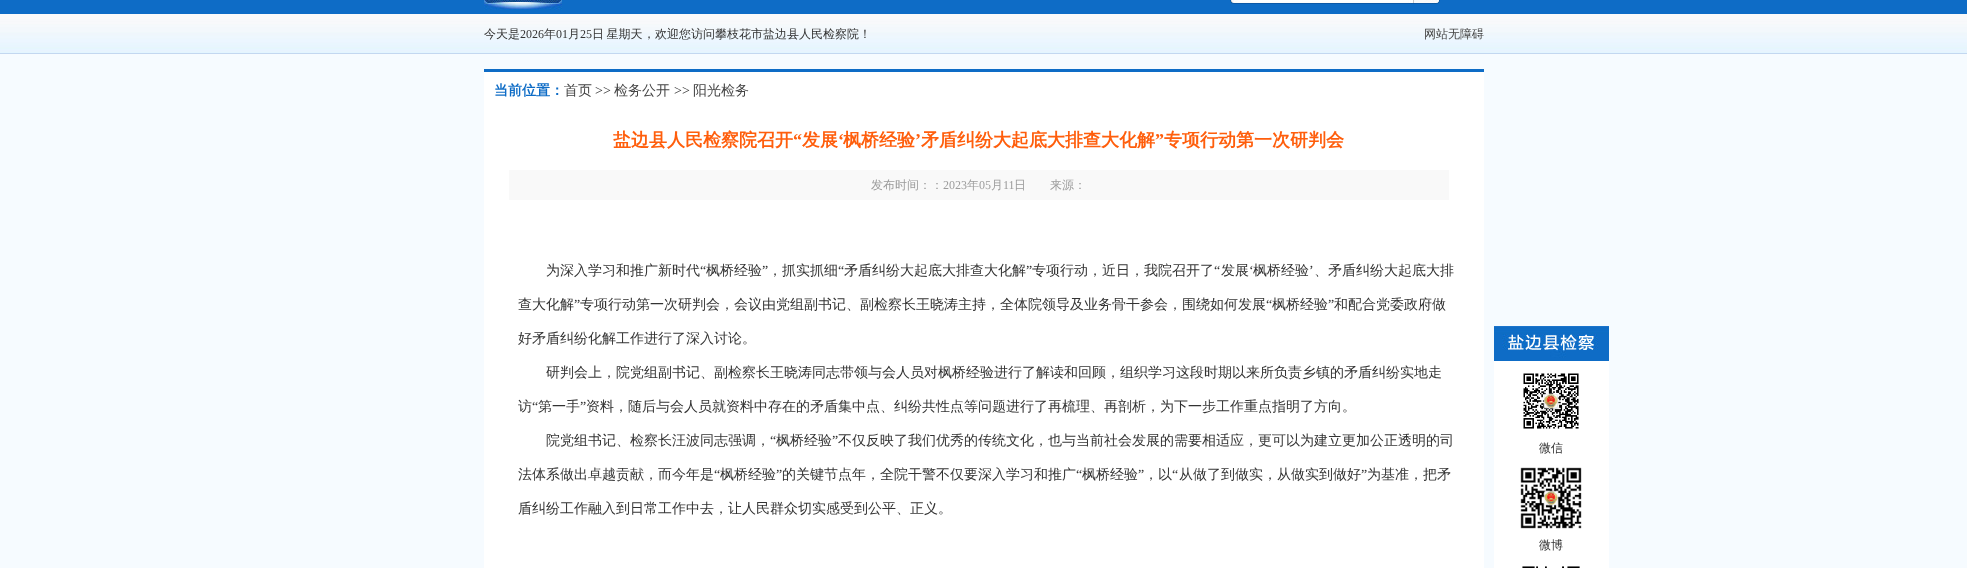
<!DOCTYPE html>
<meta charset="utf-8">
<style>body { margin: 0 } canvas { display: block }</style>
<canvas id="canvas" width="1967" height="568"></canvas>
<img id="img1" src="images/1.png" hidden>
<img id="img2" src="images/2.png" hidden>
<img id="img3" src="images/3.png" hidden>
<img id="img4" src="images/4.png" hidden>
<img id="img5" src="images/5.png" hidden>
<img id="img6" src="images/6.png" hidden>
<img id="img7" src="images/7.png" hidden>
<img id="img8" src="images/8.png" hidden>
<script>
window.onload = function () {
    const canvas = document.getElementById('canvas');
    const context = canvas.getContext('2d');
    context.miterLimit = 4;
    context.fontKerning = 'normal';

    context.fillStyle = 'rgb(246, 251, 255)';
    context.fillRect(0, 0, 1967, 568);
    context.fillStyle = 'rgb(14, 108, 198)';
    context.fillRect(0, 0, 1967, 14);
    context.drawImage(document.getElementById('img1'), 484, 0, 78, 10);
    context.drawImage(document.getElementById('img2'), 1230, 0, 184, 4);
    context.drawImage(document.getElementById('img3'), 1414, 0, 26, 4);
    context.drawImage(document.getElementById('img4'), 0, 14, 1967, 40);
    context.fillStyle = 'rgb(255, 255, 255)';
    context.fillRect(484, 72, 1000, 496);
    context.fillStyle = 'rgb(14, 108, 198)';
    context.fillRect(484, 69, 1000, 3);
    context.fillStyle = 'rgb(249, 249, 249)';
    context.fillRect(509, 170, 940, 30);
    context.fillStyle = 'rgb(255, 255, 255)';
    context.fillRect(1494, 361, 115, 207);
    context.drawImage(document.getElementById('img5'), 1494, 326, 115, 35);
    context.drawImage(document.getElementById('img6'), 1523, 373, 56, 56);
    context.drawImage(document.getElementById('img7'), 1520, 467, 62, 62);
    context.drawImage(document.getElementById('img8'), 1522, 566, 58, 2);
    context.font = '500 12px WenQuanYi Zen Hei';
    context.fillStyle = 'rgb(51, 51, 51)';
    context.fillText('今天是', 484, 38);
    context.font = '12px Liberation Serif';
    context.fillText('2026', 520, 38);
    context.font = '500 12px WenQuanYi Zen Hei';
    context.fillText('年', 544, 38);
    context.font = '12px Liberation Serif';
    context.fillText('01', 556, 38);
    context.font = '500 12px WenQuanYi Zen Hei';
    context.fillText('月', 568, 38);
    context.font = '12px Liberation Serif';
    context.fillText('25', 580, 38);
    context.wordSpacing = '-1px';
    context.font = '500 12px WenQuanYi Zen Hei';
    context.fillText('日 星期天', 592, 38);
    context.wordSpacing = '0px';
    context.fillText('，欢迎您访问攀枝花市盐边县人民检察院！', 643, 38);
    context.fillStyle = 'rgb(68, 68, 68)';
    context.fillText('网站无障碍', 1424, 38);
    context.font = 'bold 14px WenQuanYi Zen Hei';
    context.fillStyle = 'rgb(14, 108, 198)';
    context.fillText('当前位置：', 494, 95);
    context.font = '500 14px WenQuanYi Zen Hei';
    context.fillStyle = 'rgb(68, 68, 68)';
    context.fillText('首页', 564, 95);
    context.font = '14px Liberation Serif';
    context.fillStyle = 'rgb(51, 51, 51)';
    context.fillText('>>', 595, 95);
    context.font = '500 14px WenQuanYi Zen Hei';
    context.fillStyle = 'rgb(68, 68, 68)';
    context.fillText('检务公开', 614, 95);
    context.font = '14px Liberation Serif';
    context.fillStyle = 'rgb(51, 51, 51)';
    context.fillText('>>', 674, 95);
    context.font = '500 14px WenQuanYi Zen Hei';
    context.fillStyle = 'rgb(68, 68, 68)';
    context.fillText('阳光检务', 693, 95);
    context.font = 'bold 18px WenQuanYi Zen Hei';
    context.fillStyle = 'rgb(255, 94, 12)';
    context.fillText('盐边县人民检察院召开', 613, 146);
    context.font = 'bold 18px Liberation Serif';
    context.fillText('“', 793, 146);
    context.font = 'bold 18px WenQuanYi Zen Hei';
    context.fillText('发展', 802, 146);
    context.font = 'bold 18px Liberation Serif';
    context.fillText('‘', 838, 146);
    context.font = 'bold 18px WenQuanYi Zen Hei';
    context.fillText('枫桥经验', 843, 146);
    context.font = 'bold 18px Liberation Serif';
    context.fillText('’', 915, 146);
    context.font = 'bold 18px WenQuanYi Zen Hei';
    context.fillText('矛盾纠纷大起底大排查大化解', 921, 146);
    context.font = 'bold 18px Liberation Serif';
    context.fillText('”', 1155, 146);
    context.font = 'bold 18px WenQuanYi Zen Hei';
    context.fillText('专项行动第一次研判会', 1164, 146);
    context.font = '500 12px WenQuanYi Zen Hei';
    context.fillStyle = 'rgb(156, 156, 156)';
    context.fillText('发布时间：：', 871, 189);
    context.font = '12px Liberation Serif';
    context.fillText('2023', 943, 189);
    context.font = '500 12px WenQuanYi Zen Hei';
    context.fillText('年', 967, 189);
    context.font = '12px Liberation Serif';
    context.fillText('05', 979, 189);
    context.font = '500 12px WenQuanYi Zen Hei';
    context.fillText('月', 991, 189);
    context.font = '12px Liberation Serif';
    context.fillText('11', 1003, 189);
    context.font = '500 12px WenQuanYi Zen Hei';
    context.fillText('日　　来源：', 1014, 189);
    context.font = '500 14px WenQuanYi Zen Hei';
    context.fillStyle = 'rgb(51, 51, 51)';
    context.fillText('为深入学习和推广新时代', 546, 275);
    context.font = '14px Liberation Serif';
    context.fillText('“', 700, 275);
    context.font = '500 14px WenQuanYi Zen Hei';
    context.fillText('枫桥经验', 706, 275);
    context.font = '14px Liberation Serif';
    context.fillText('”', 762, 275);
    context.font = '500 14px WenQuanYi Zen Hei';
    context.fillText('，抓实抓细', 768, 275);
    context.font = '14px Liberation Serif';
    context.fillText('“', 838, 275);
    context.font = '500 14px WenQuanYi Zen Hei';
    context.fillText('矛盾纠纷大起底大排查大化解', 844, 275);
    context.font = '14px Liberation Serif';
    context.fillText('”', 1026, 275);
    context.font = '500 14px WenQuanYi Zen Hei';
    context.fillText('专项行动，近日，我院召开了', 1032, 275);
    context.font = '14px Liberation Serif';
    context.fillText('“', 1214, 275);
    context.font = '500 14px WenQuanYi Zen Hei';
    context.fillText('发展', 1221, 275);
    context.font = '14px Liberation Serif';
    context.fillText('‘', 1249, 275);
    context.font = '500 14px WenQuanYi Zen Hei';
    context.fillText('枫桥经验', 1253, 275);
    context.font = '14px Liberation Serif';
    context.fillText('’', 1309, 275);
    context.font = '500 14px WenQuanYi Zen Hei';
    context.fillText('、矛盾纠纷大起底大排', 1314, 275);
    context.fillText('查大化解', 518, 309);
    context.font = '14px Liberation Serif';
    context.fillText('”', 574, 309);
    context.font = '500 14px WenQuanYi Zen Hei';
    context.fillText('专项行动第一次研判会，会议由党组副书记、副检察长王晓涛主持，全体院领导及业务骨干参会，围绕如何发展', 580, 309);
    context.font = '14px Liberation Serif';
    context.fillText('“', 1266, 309);
    context.font = '500 14px WenQuanYi Zen Hei';
    context.fillText('枫桥经验', 1272, 309);
    context.font = '14px Liberation Serif';
    context.fillText('”', 1328, 309);
    context.font = '500 14px WenQuanYi Zen Hei';
    context.fillText('和配合党委政府做', 1334, 309);
    context.fillText('好矛盾纠纷化解工作进行了深入讨论。', 518, 343);
    context.fillText('研判会上，院党组副书记、副检察长王晓涛同志带领与会人员对枫桥经验进行了解读和回顾，组织学习这段时期以来所负责乡镇的矛盾纠纷实地走', 546, 377);
    context.fillText('访', 518, 411);
    context.font = '14px Liberation Serif';
    context.fillText('“', 532, 411);
    context.font = '500 14px WenQuanYi Zen Hei';
    context.fillText('第一手', 538, 411);
    context.font = '14px Liberation Serif';
    context.fillText('”', 580, 411);
    context.font = '500 14px WenQuanYi Zen Hei';
    context.fillText('资料，随后与会人员就资料中存在的矛盾集中点、纠纷共性点等问题进行了再梳理、再剖析，为下一步工作重点指明了方向。', 586, 411);
    context.fillText('院党组书记、检察长汪波同志强调，', 546, 445);
    context.font = '14px Liberation Serif';
    context.fillText('“', 770, 445);
    context.font = '500 14px WenQuanYi Zen Hei';
    context.fillText('枫桥经验', 776, 445);
    context.font = '14px Liberation Serif';
    context.fillText('”', 832, 445);
    context.font = '500 14px WenQuanYi Zen Hei';
    context.fillText('不仅反映了我们优秀的传统文化，也与当前社会发展的需要相适应，更可以为建立更加公正透明的司', 838, 445);
    context.fillText('法体系做出卓越贡献，而今年是', 518, 479);
    context.font = '14px Liberation Serif';
    context.fillText('“', 714, 479);
    context.font = '500 14px WenQuanYi Zen Hei';
    context.fillText('枫桥经验', 720, 479);
    context.font = '14px Liberation Serif';
    context.fillText('”', 776, 479);
    context.font = '500 14px WenQuanYi Zen Hei';
    context.fillText('的关键节点年，全院干警不仅要深入学习和推广', 782, 479);
    context.font = '14px Liberation Serif';
    context.fillText('“', 1076, 479);
    context.font = '500 14px WenQuanYi Zen Hei';
    context.fillText('枫桥经验', 1082, 479);
    context.font = '14px Liberation Serif';
    context.fillText('”', 1138, 479);
    context.font = '500 14px WenQuanYi Zen Hei';
    context.fillText('，以', 1144, 479);
    context.font = '14px Liberation Serif';
    context.fillText('“', 1172, 479);
    context.font = '500 14px WenQuanYi Zen Hei';
    context.fillText('从做了到做实，从做实到做好', 1179, 479);
    context.font = '14px Liberation Serif';
    context.fillText('”', 1361, 479);
    context.font = '500 14px WenQuanYi Zen Hei';
    context.fillText('为基准，把矛', 1367, 479);
    context.fillText('盾纠纷工作融入到日常工作中去，让人民群众切实感受到公平、正义。', 518, 513);
    context.font = '500 12px WenQuanYi Zen Hei';
    context.fillText('微信', 1539, 452);
    context.fillText('微博', 1539, 549);
};
</script>
